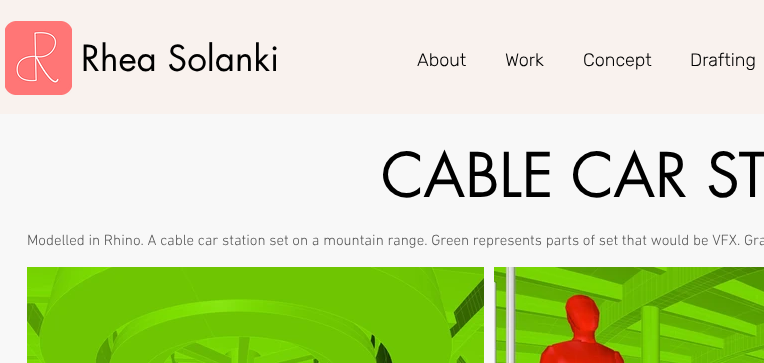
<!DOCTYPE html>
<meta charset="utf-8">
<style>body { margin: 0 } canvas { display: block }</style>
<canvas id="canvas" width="764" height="363"></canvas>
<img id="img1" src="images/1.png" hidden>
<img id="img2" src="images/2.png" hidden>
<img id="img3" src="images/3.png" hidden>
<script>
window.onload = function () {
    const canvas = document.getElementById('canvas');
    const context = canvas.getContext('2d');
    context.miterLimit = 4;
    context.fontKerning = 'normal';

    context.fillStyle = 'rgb(248, 248, 248)';
    context.fillRect(0, 0, 764, 363);
    context.fillStyle = 'rgb(249, 242, 238)';
    context.fillRect(0, 0, 764, 114);
    context.drawImage(document.getElementById('img1'), 5, 21, 67, 74);
    context.drawImage(document.getElementById('img2'), 27, 267, 457, 96);
    context.drawImage(document.getElementById('img3'), 494, 267, 270, 96);
    context.font = '35px futura';
    context.fillStyle = 'rgb(0, 0, 0)';
    context.fillText('Rhea Solanki', 81, 71);
    context.font = '300 18px Rubik';
    context.fillText('About', 417, 66);
    context.fillText('Work', 505, 66);
    context.fillText('Concept', 583, 66);
    context.fillText('Drafting', 690, 66);
    context.font = '60px futura';
    context.fillText('CABLE CAR ST', 381, 197);
    context.font = '300 15px "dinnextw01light"';
    context.fillStyle = 'rgb(84, 84, 84)';
    context.fillText('Modelled in Rhino. A cable car station set on a mountain range. Green represents parts of set that would be VFX. Gra', 27, 245);
};
</script>
